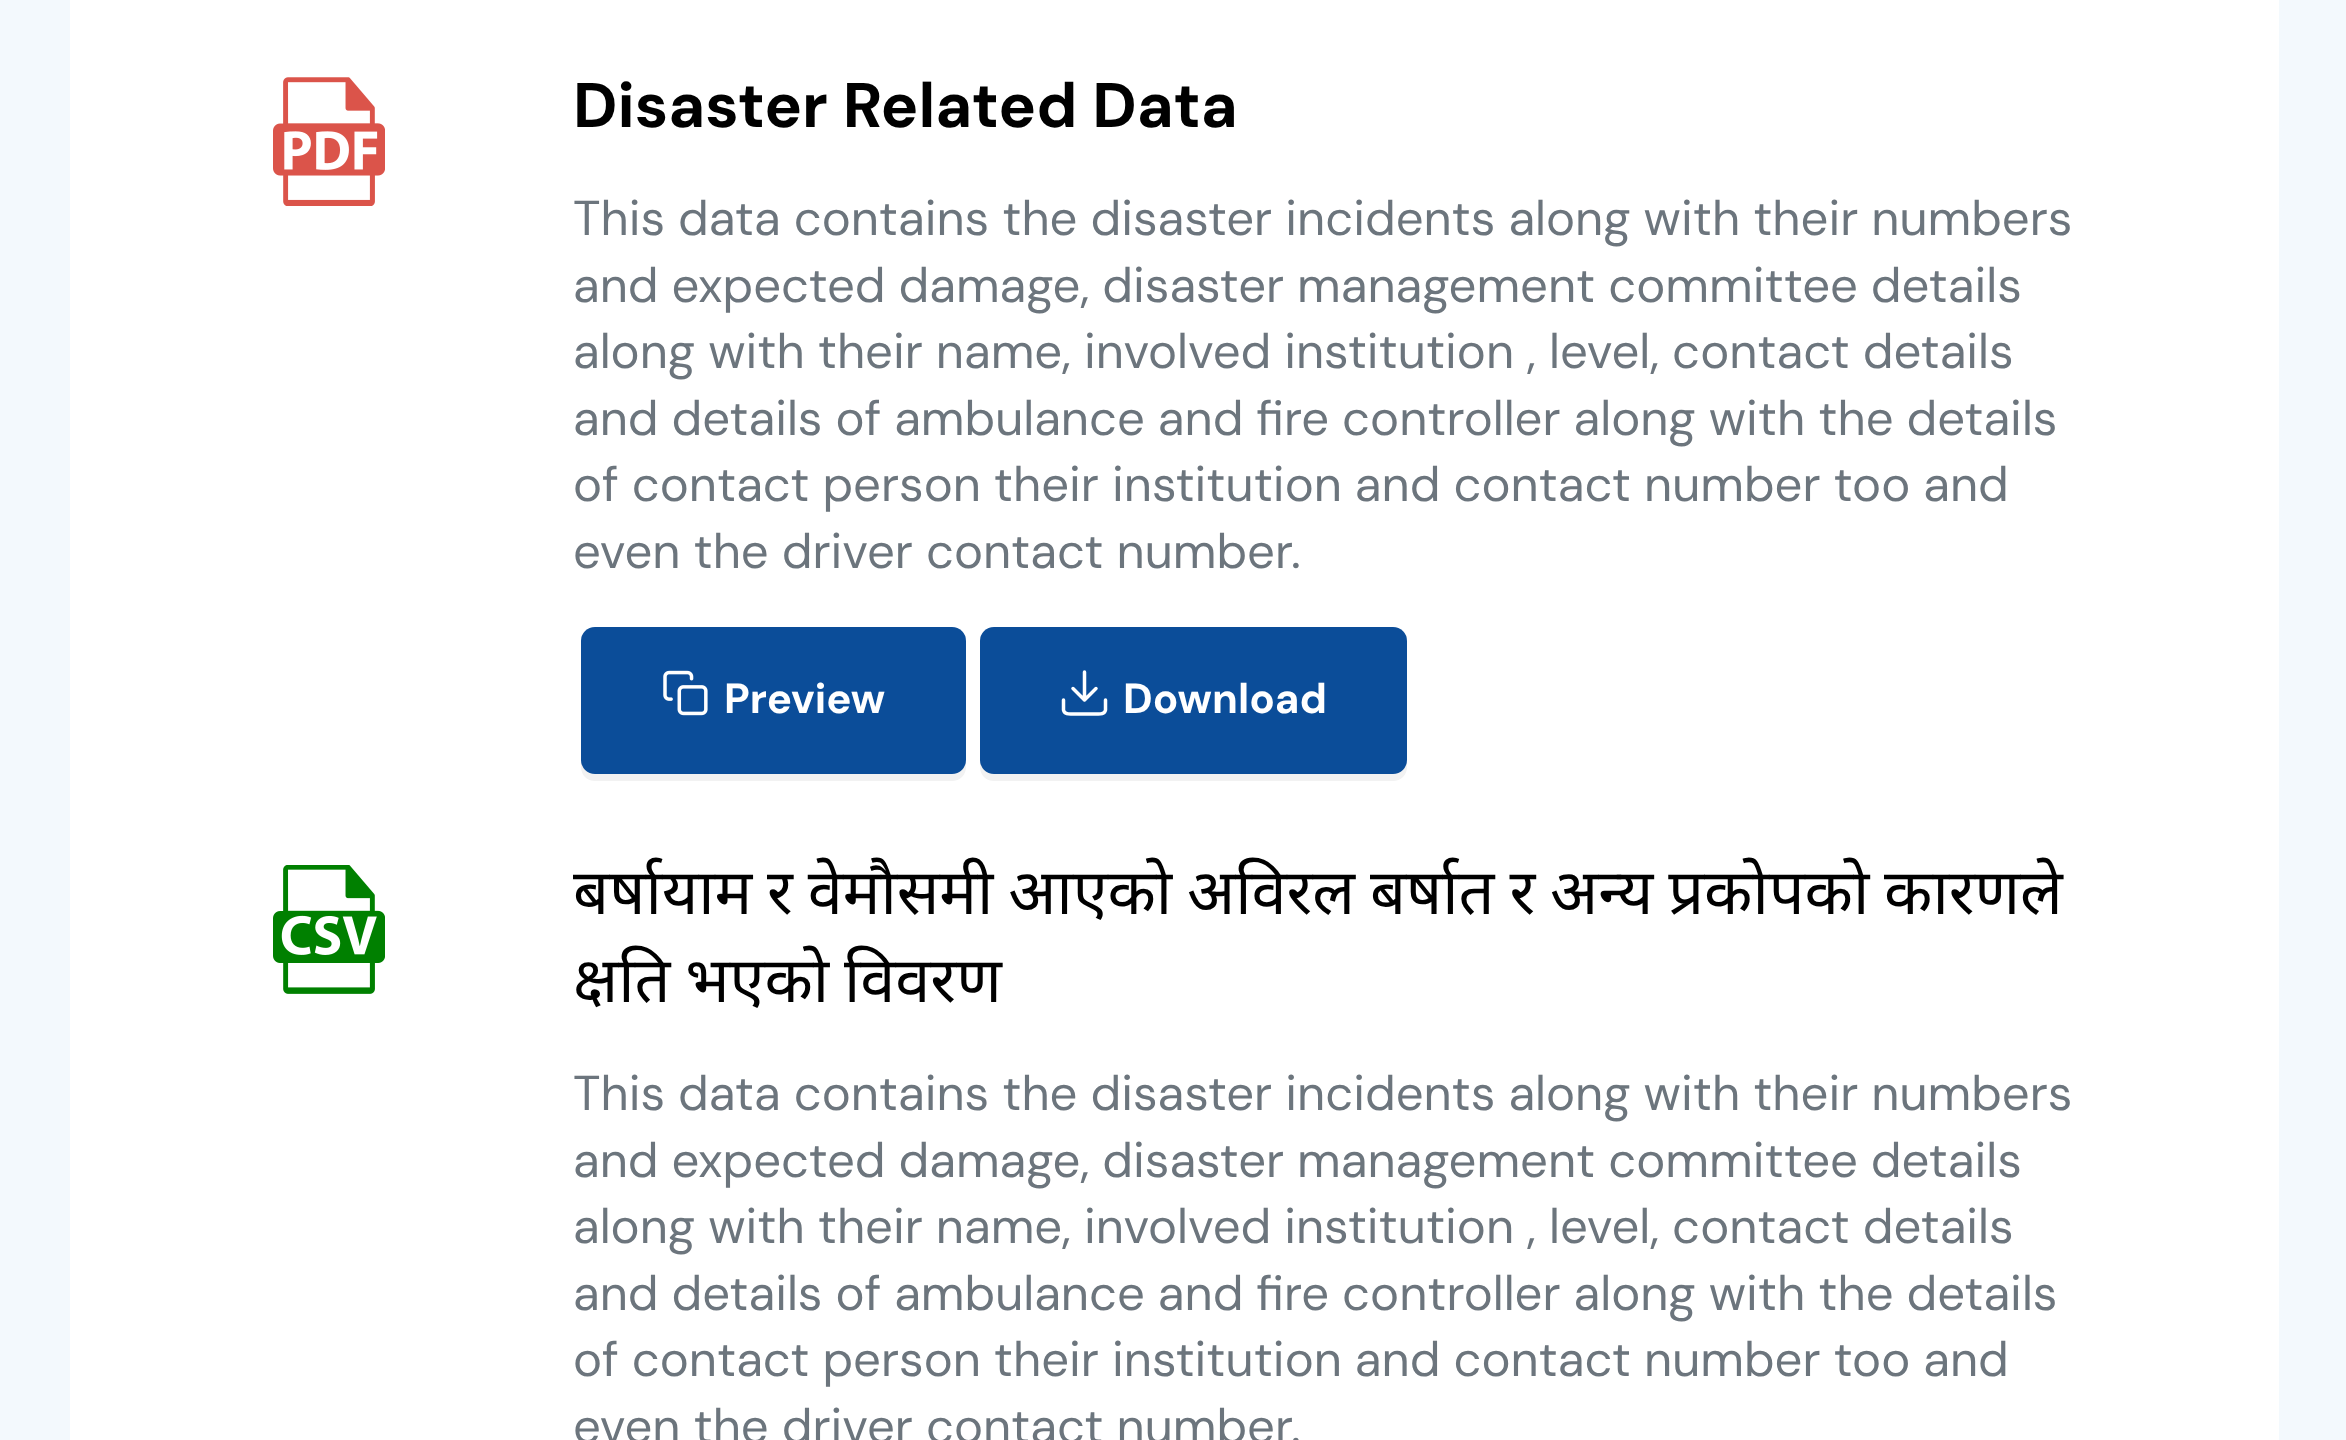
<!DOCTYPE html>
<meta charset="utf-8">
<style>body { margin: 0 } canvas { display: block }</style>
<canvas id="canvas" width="2346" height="1440"></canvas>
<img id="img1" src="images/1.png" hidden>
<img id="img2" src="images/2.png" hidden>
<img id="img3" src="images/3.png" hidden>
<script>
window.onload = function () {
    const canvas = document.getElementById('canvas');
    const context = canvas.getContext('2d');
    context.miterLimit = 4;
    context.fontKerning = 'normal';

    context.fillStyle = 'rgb(243, 249, 253)';
    context.fillRect(0, 0, 2346, 1440);
    context.fillStyle = 'rgb(255, 255, 255)';
    context.fillRect(70, 0, 2209, 1440);
    context.drawImage(document.getElementById('img1'), 273, 77, 112, 129);
    context.fillStyle = 'rgb(242, 242, 242)';
    context.beginPath();
    context.moveTo(581, 760);
    context.lineTo(581, 767);
    context.bezierCurveTo(581, 775, 587, 781, 595, 781);
    context.lineTo(952, 781);
    context.bezierCurveTo(960, 781, 966, 775, 966, 767);
    context.lineTo(966, 760);
    context.bezierCurveTo(966, 767, 960, 774, 952, 774);
    context.lineTo(595, 774);
    context.bezierCurveTo(587, 774, 581, 767, 581, 760);
    context.closePath();
    context.fill();
    context.fillStyle = 'rgb(11, 77, 153)';
    context.beginPath();
    context.roundRect(581, 627, 385, 147, 14);
    context.fill();
    context.drawImage(document.getElementById('img2'), 663, 670, 45, 46);
    context.fillStyle = 'rgb(242, 242, 242)';
    context.beginPath();
    context.moveTo(980, 760);
    context.lineTo(980, 767);
    context.bezierCurveTo(980, 775, 986, 781, 994, 781);
    context.lineTo(1393, 781);
    context.bezierCurveTo(1401, 781, 1407, 775, 1407, 767);
    context.lineTo(1407, 760);
    context.bezierCurveTo(1407, 767, 1401, 774, 1393, 774);
    context.lineTo(994, 774);
    context.bezierCurveTo(986, 774, 980, 767, 980, 760);
    context.closePath();
    context.fill();
    context.fillStyle = 'rgb(11, 77, 153)';
    context.beginPath();
    context.roundRect(980, 627, 427, 147, 14);
    context.fill();
    context.beginPath();
    context.moveTo(1105.5, 700);
    context.lineTo(1105.5, 710);
    context.bezierCurveTo(1104.5, 715, 1099, 714, 1095.5, 714);
    context.lineTo(1073.5, 714);
    context.bezierCurveTo(1070, 714, 1064.5, 715, 1063.5, 710);
    context.lineTo(1063.5, 700);
    context.moveTo(1073, 688.5);
    context.lineTo(1084.5, 700);
    context.lineTo(1096, 688.5);
    context.moveTo(1084.5, 700);
    context.lineTo(1084.5, 672);
    context.strokeStyle = 'rgb(255, 255, 255)';
    context.lineWidth = 3.5;
    context.lineCap = 'round';
    context.lineJoin = 'round';
    context.stroke();
    context.drawImage(document.getElementById('img3'), 273, 865, 112, 129);
    context.font = 'bold 63px DM Sans';
    context.fillStyle = 'rgb(0, 0, 0)';
    context.fillText('Disaster Related Data', 573, 127);
    context.font = '49px DM Sans';
    context.fillStyle = 'rgb(108, 117, 125)';
    context.fillText('This data contains the disaster incidents along with their numbers', 573, 235);
    context.fillText('and expected damage, disaster management committee details', 573, 302);
    context.fillText('along with their name, involved institution , level, contact details', 573, 368);
    context.fillText('and details of ambulance and fire controller along with the details', 573, 435);
    context.fillText('of contact person their institution and contact number too and', 573, 501);
    context.fillText('even the driver contact number.', 573, 568);
    context.font = 'bold 42px DM Sans';
    context.fillStyle = 'rgb(255, 255, 255)';
    context.fillText('Preview', 724, 713);
    context.fillText('Download', 1123, 713);
    context.wordSpacing = '-1.5px';
    context.font = '63px Noto Sans';
    context.fillStyle = 'rgb(0, 0, 0)';
    context.fillText('बर्षायाम र वेमौसमी आएको अविरल बर्षात र अन्य प्रकोपको कारणले', 573, 914);
    context.fillText('क्षति भएको विवरण', 573, 1002);
    context.wordSpacing = '0px';
    context.font = '49px DM Sans';
    context.fillStyle = 'rgb(108, 117, 125)';
    context.fillText('This data contains the disaster incidents along with their numbers', 573, 1110);
    context.fillText('and expected damage, disaster management committee details', 573, 1177);
    context.fillText('along with their name, involved institution , level, contact details', 573, 1243);
    context.fillText('and details of ambulance and fire controller along with the details', 573, 1310);
    context.fillText('of contact person their institution and contact number too and', 573, 1376);
    context.fillText('even the driver contact number.', 573, 1443);
};
</script>
